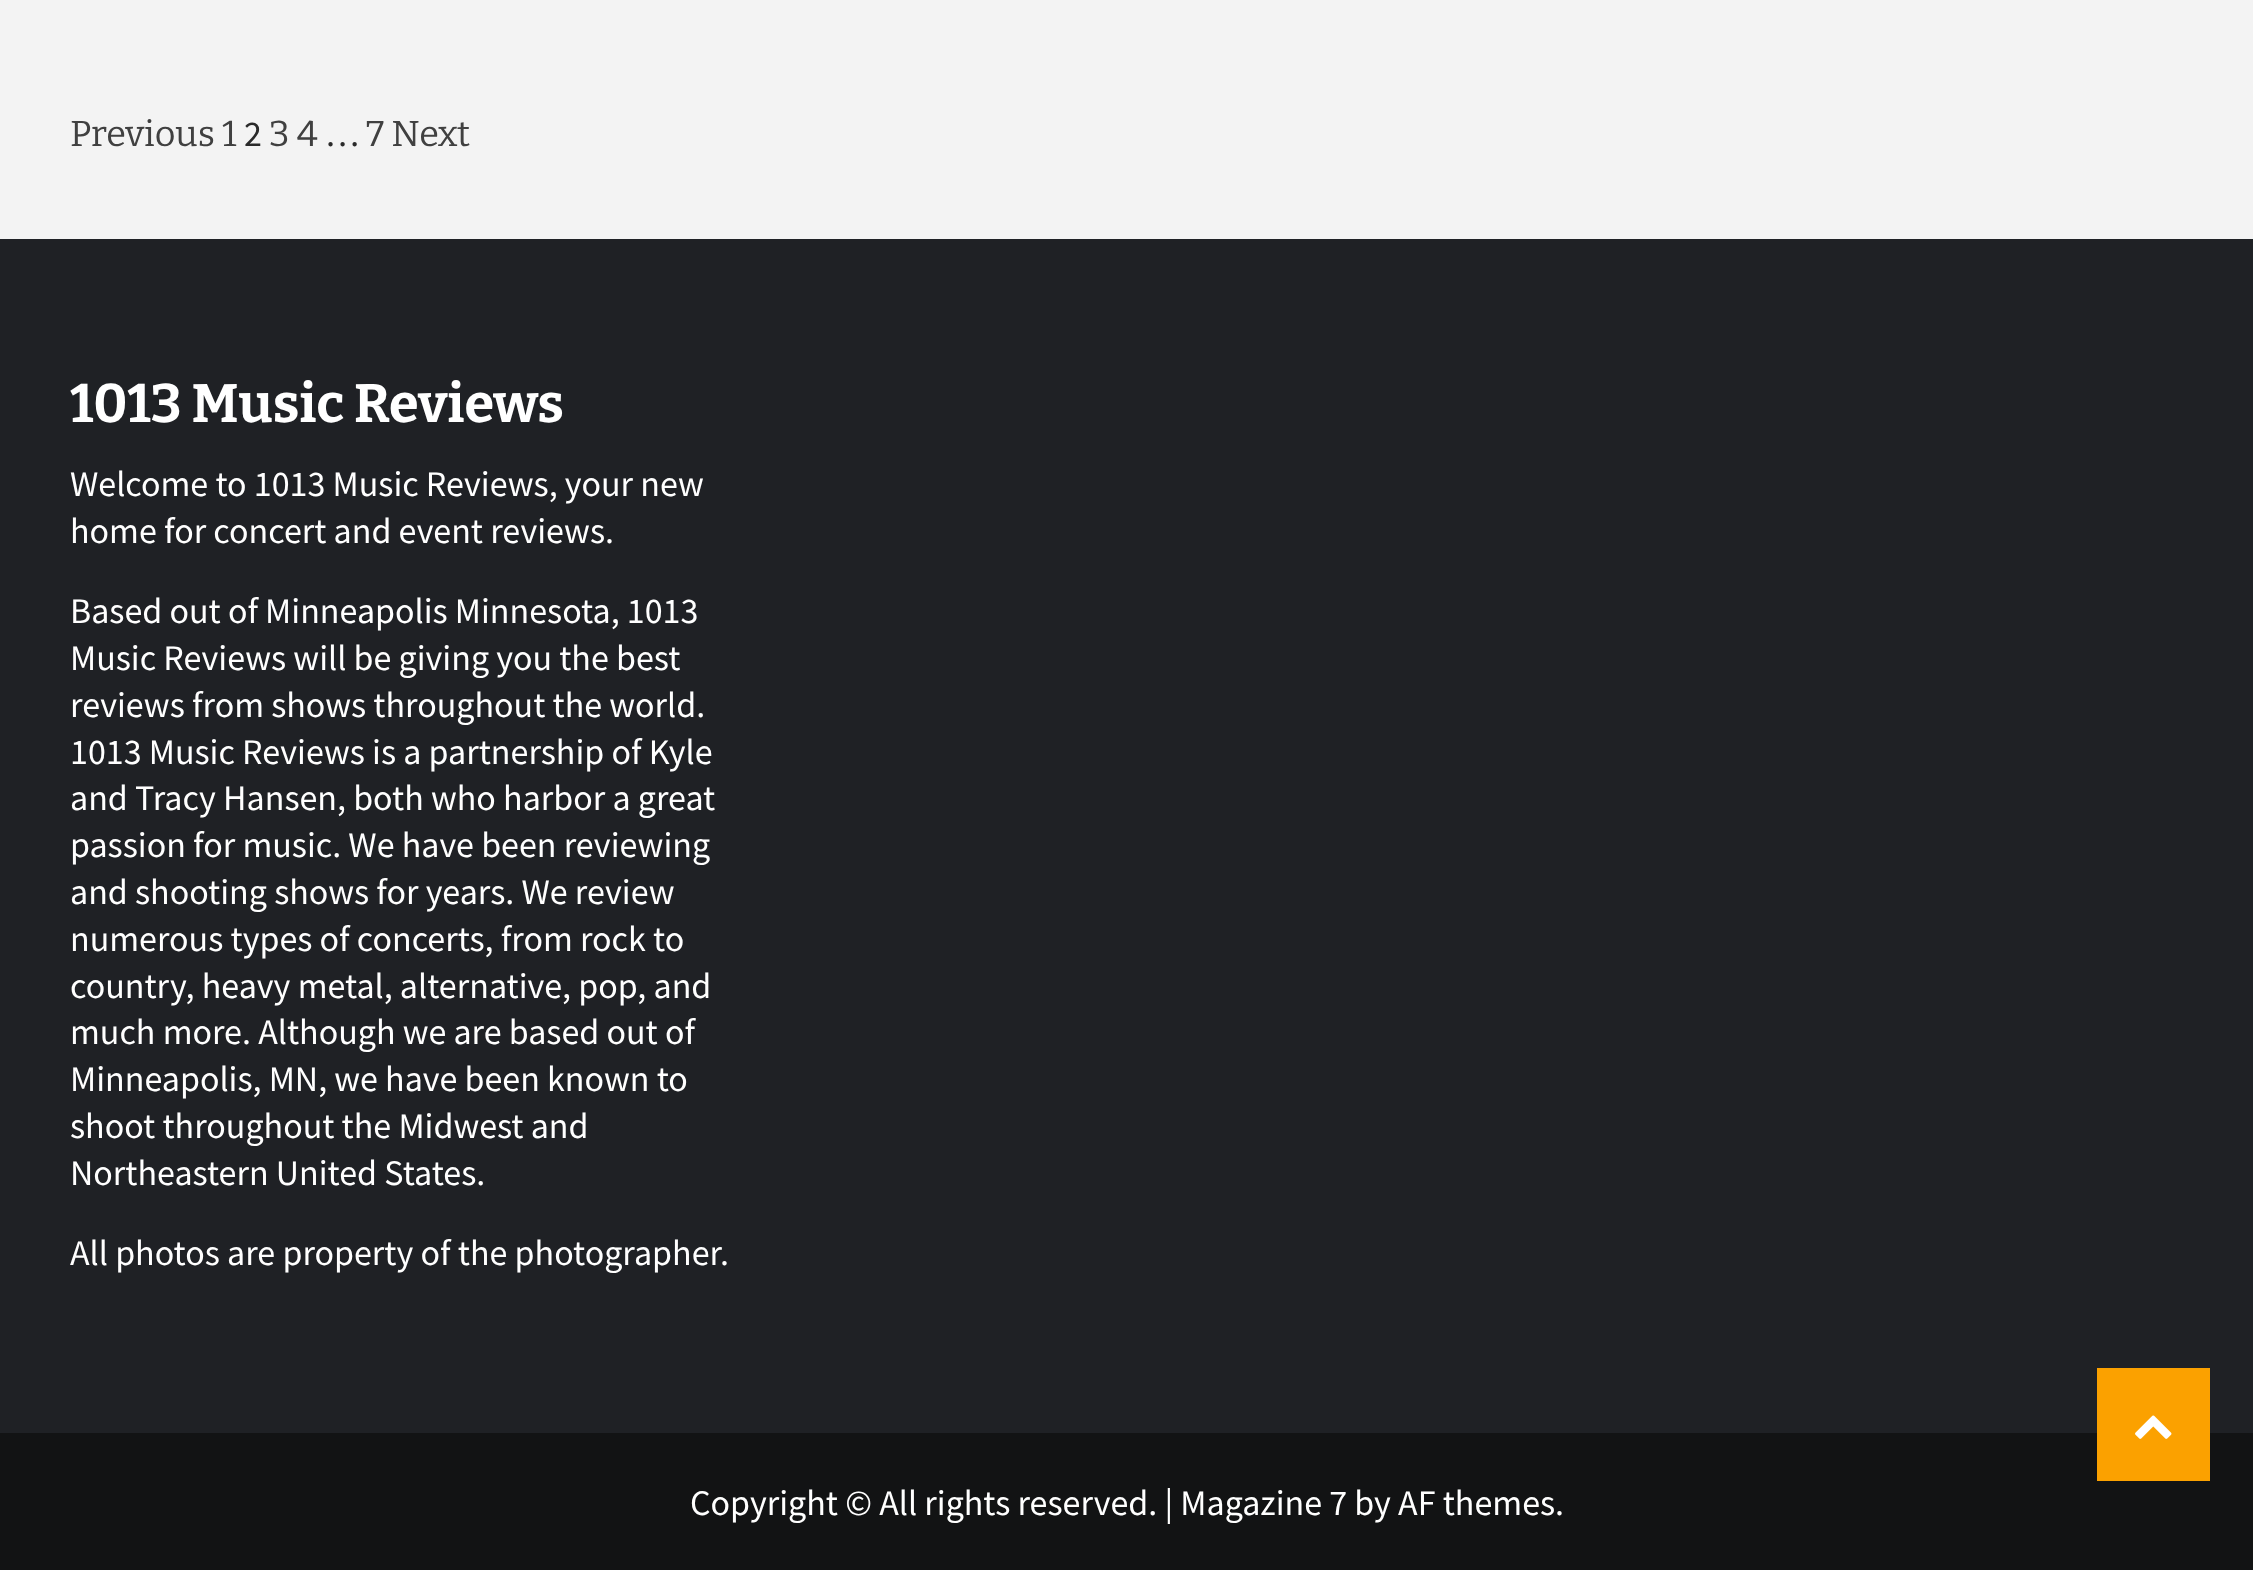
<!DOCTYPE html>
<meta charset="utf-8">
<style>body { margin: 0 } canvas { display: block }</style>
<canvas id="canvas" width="2253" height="1570"></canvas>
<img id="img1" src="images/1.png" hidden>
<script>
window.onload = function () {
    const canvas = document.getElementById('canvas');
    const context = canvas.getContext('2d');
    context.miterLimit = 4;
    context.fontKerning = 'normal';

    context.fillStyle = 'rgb(243, 243, 243)';
    context.fillRect(0, 0, 2253, 1570);
    context.fillStyle = 'rgb(31, 33, 37)';
    context.fillRect(0, 239, 2253, 1194);
    context.fillStyle = 'rgb(18, 19, 20)';
    context.fillRect(0, 1433, 2253, 137);
    context.fillStyle = 'rgb(251, 161, 0)';
    context.fillRect(2097, 1368, 113, 113);
    context.drawImage(document.getElementById('img1'), 2135, 1415, 37, 24);
    context.font = '36px Bitter';
    context.fillStyle = 'rgb(64, 64, 64)';
    context.fillText('Previous 1', 70, 146);
    context.font = '36px Source Sans Pro';
    context.fillStyle = 'rgb(42, 42, 42)';
    context.fillText('2', 244, 146);
    context.font = '36px Bitter';
    context.fillStyle = 'rgb(64, 64, 64)';
    context.fillText('3 4', 269, 146);
    context.font = '36px Source Sans Pro';
    context.fillStyle = 'rgb(42, 42, 42)';
    context.fillText('…', 325, 146);
    context.font = '36px Bitter';
    context.fillStyle = 'rgb(64, 64, 64)';
    context.fillText('7 Next', 366, 146);
    context.font = 'bold 54px Bitter';
    context.fillStyle = 'rgb(255, 255, 255)';
    context.fillText('1013 Music Reviews', 70, 422);
    context.font = '36px Source Sans Pro';
    context.fillText('Welcome to 1013 Music Reviews, your new', 70, 496);
    context.fillText('home for concert and event reviews.', 70, 543);
    context.fillText('Based out of Minneapolis Minnesota, 1013', 70, 623);
    context.fillText('Music Reviews will be giving you the best', 70, 670);
    context.fillText('reviews from shows throughout the world.', 70, 717);
    context.fillText('1013 Music Reviews is a partnership of Kyle', 70, 764);
    context.fillText('and Tracy Hansen, both who harbor a great', 70, 810);
    context.fillText('passion for music. We have been reviewing', 70, 857);
    context.fillText('and shooting shows for years. We review', 70, 904);
    context.fillText('numerous types of concerts, from rock to', 70, 951);
    context.fillText('country, heavy metal, alternative, pop, and', 70, 998);
    context.fillText('much more. Although we are based out of', 70, 1044);
    context.fillText('Minneapolis, MN, we have been known to', 70, 1091);
    context.fillText('shoot throughout the Midwest and', 70, 1138);
    context.fillText('Northeastern United States.', 70, 1185);
    context.fillText('All photos are property of the photographer.', 70, 1265);
    context.fillText('Copyright © All rights reserved. | Magazine 7 by AF themes.', 690, 1515);
};
</script>
